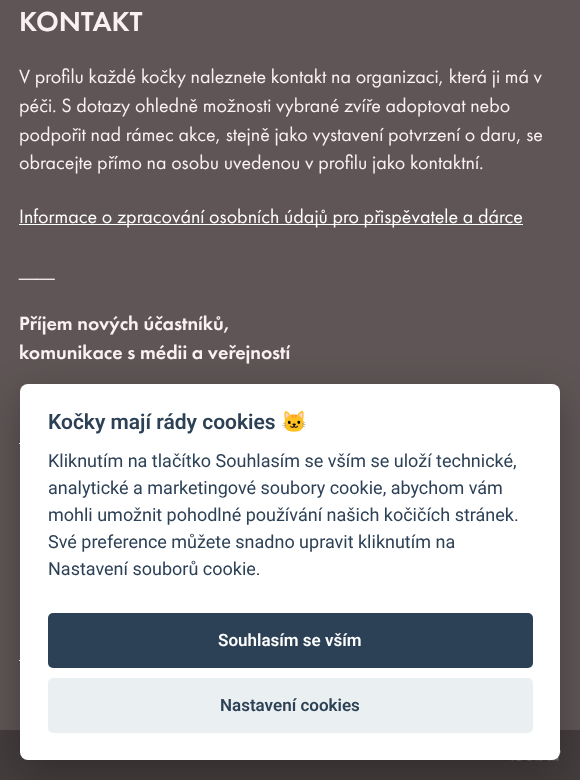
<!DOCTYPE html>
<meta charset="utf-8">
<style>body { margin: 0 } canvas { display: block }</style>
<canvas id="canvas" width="580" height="780"></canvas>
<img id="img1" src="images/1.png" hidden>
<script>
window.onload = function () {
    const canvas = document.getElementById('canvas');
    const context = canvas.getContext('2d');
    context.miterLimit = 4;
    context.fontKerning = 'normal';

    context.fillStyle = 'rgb(95, 85, 86)';
    context.fillRect(0, 0, 580, 780);
    context.fillStyle = 'rgb(255, 255, 255)';
    context.fillRect(19, 224, 504, 1);
    context.fillRect(19, 443, 1, 1);
    context.fillRect(19, 660, 1, 1);
    context.fillStyle = 'rgb(68, 61, 62)';
    context.fillRect(0, 730, 580, 50);
    context.drawImage(document.getElementById('img1'), 511, 750, 50, 11);
    context.fillStyle = 'rgba(2, 2, 3, 0.28)';
    context.filter = 'blur(19px)';
    context.beginPath();
    context.roundRect(20, 396, 540, 377, 8);
    context.fill();
    context.filter = 'none';
    context.fillStyle = 'rgb(255, 255, 255)';
    context.beginPath();
    context.roundRect(20, 384, 540, 376, 8);
    context.fill();
    context.fillStyle = 'rgb(45, 65, 86)';
    context.beginPath();
    context.roundRect(48, 613, 485, 55, 5);
    context.fill();
    context.fillStyle = 'rgb(234, 239, 242)';
    context.beginPath();
    context.roundRect(48, 678, 485, 55, 5);
    context.fill();
    context.font = '500 28.5px Futura PT';
    context.fillStyle = 'rgb(251, 240, 241)';
    context.fillText('KONTAKT', 19, 31);
    context.font = '20px Futura PT';
    context.fillText('V profilu každé kočky naleznete kontakt na organizaci, která ji má v', 19, 83);
    context.fillText('péči. S dotazy ohledně možnosti vybrané zvíře adoptovat nebo', 19, 112);
    context.fillText('podpořit nad rámec akce, stejně jako vystavení potvrzení o daru, se', 19, 141);
    context.fillText('obracejte přímo na osobu uvedenou v profilu jako kontaktní.', 19, 169);
    context.fillStyle = 'rgb(255, 255, 255)';
    context.fillText('Informace o zpracování osobních údajů pro přispěvatele a dárce', 19, 223);
    context.font = 'bold 32px Liberation Sans';
    context.fillStyle = 'rgb(251, 240, 241)';
    context.fillText('__', 19, 276);
    context.font = '500 20px Futura PT';
    context.fillText('Příjem nových účastníků,', 19, 330);
    context.fillText('komunikace s médii a veřejností', 19, 359);
    context.font = '600 21px Roboto';
    context.fillStyle = 'rgb(45, 65, 86)';
    context.fillText('Kočky mají rády cookies', 48, 429);
    context.font = 'bold 21px Noto Color Emoji';
    context.fillText('🐱', 281, 429);
    context.font = '18px Roboto';
    context.fillText('Kliknutím na tlačítko Souhlasím se vším se uloží technické,', 48, 467);
    context.fillText('analytické a marketingové soubory cookie, abychom vám', 48, 494);
    context.fillText('mohli umožnit pohodlné používání našich kočičích stránek.', 48, 521);
    context.fillText('Své preference můžete snadno upravit kliknutím na', 48, 548);
    context.fillText('Nastavení souborů cookie.', 48, 575);
    context.font = '600 17px Roboto';
    context.fillStyle = 'rgb(255, 255, 255)';
    context.fillText('Souhlasím se vším', 218, 646);
    context.fillStyle = 'rgb(45, 65, 86)';
    context.fillText('Nastavení cookies', 220, 711);
};
</script>
